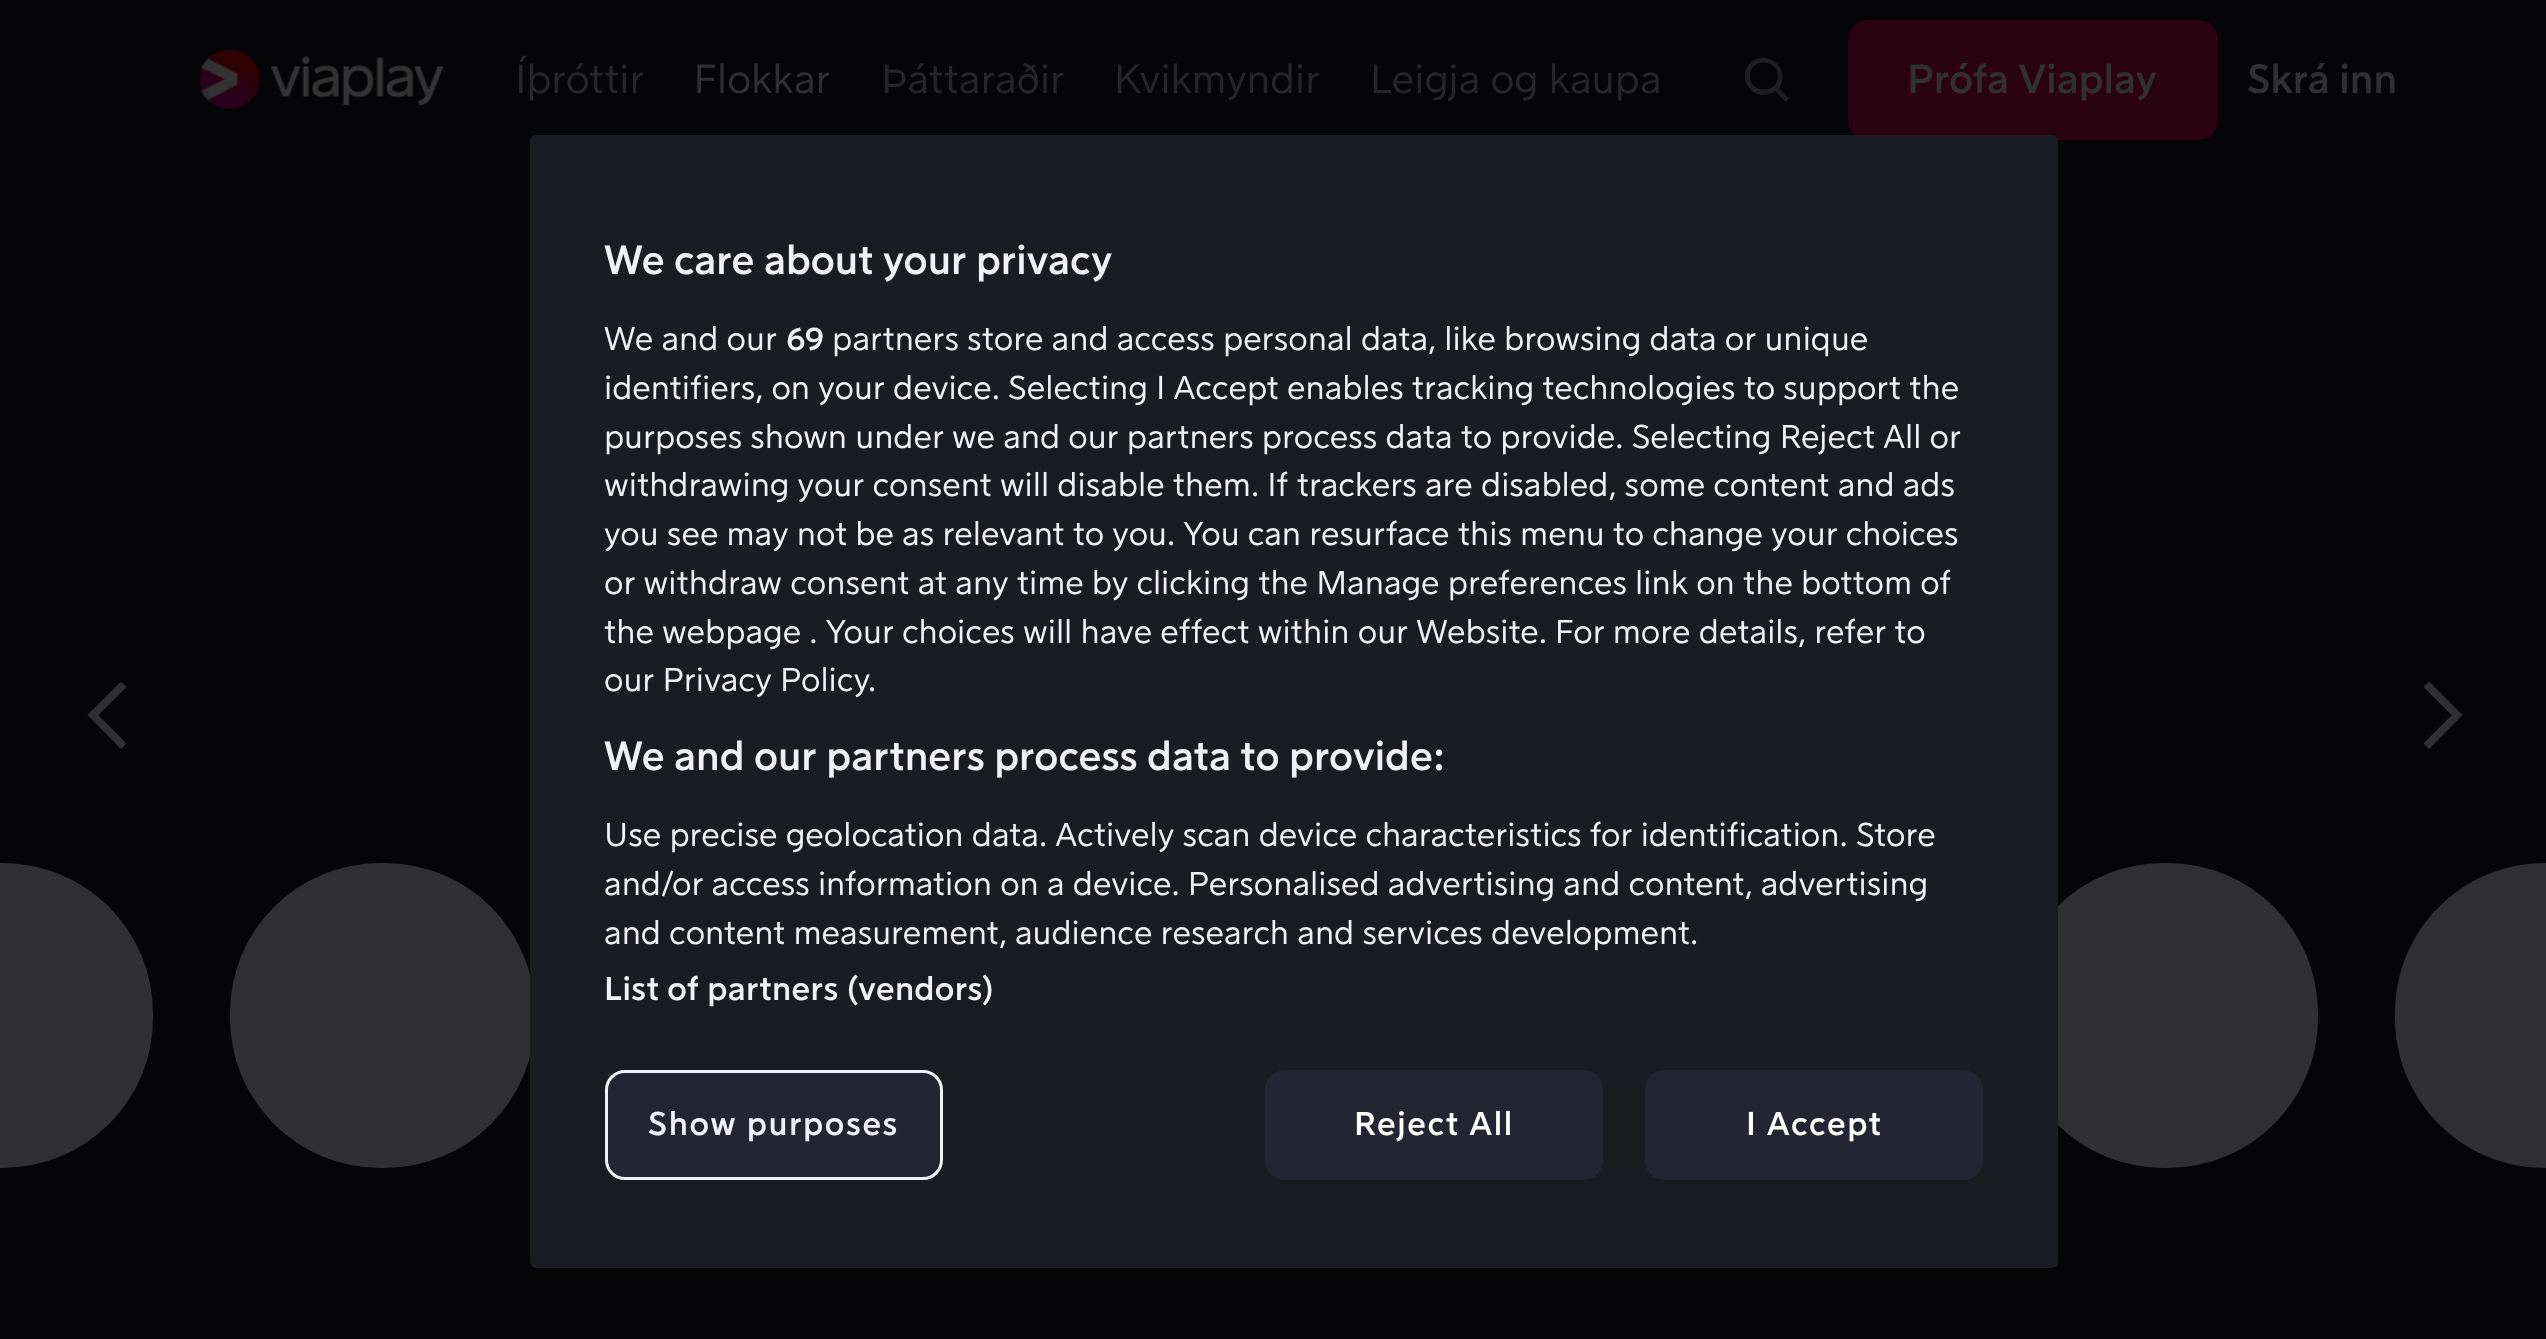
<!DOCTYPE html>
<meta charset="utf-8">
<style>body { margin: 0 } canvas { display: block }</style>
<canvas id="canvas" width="2546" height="1339"></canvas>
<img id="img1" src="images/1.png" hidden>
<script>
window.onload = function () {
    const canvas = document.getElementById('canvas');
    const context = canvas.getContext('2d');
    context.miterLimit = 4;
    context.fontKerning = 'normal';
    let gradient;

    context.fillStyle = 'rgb(255, 255, 255)';
    context.fillRect(0, 0, 2546, 1339);
    gradient = context.createLinearGradient(1274, 0, 1274, 310);
    gradient.addColorStop(0, 'rgb(5, 5, 7)');
    gradient.addColorStop(0.2, 'rgb(5, 5, 7)');
    gradient.addColorStop(0.6, 'rgb(5, 5, 7)');
    gradient.addColorStop(0.73, 'rgb(5, 5, 7)');
    gradient.addColorStop(1, 'rgb(5, 5, 7)');
    context.fillStyle = gradient;
    context.fillRect(0, 0, 2546, 310);
    context.drawImage(document.getElementById('img1'), 200, 49, 244, 60);
    context.fillStyle = 'rgb(30, 30, 32)';
    context.beginPath();
    context.moveTo(1750, 76);
    context.bezierCurveTo(1750, 58, 1777, 58, 1778, 76);
    context.bezierCurveTo(1778, 94, 1750, 94, 1750, 76);
    context.closePath();
    context.moveTo(1764, 58);
    context.bezierCurveTo(1759, 58, 1754, 59, 1750, 63);
    context.bezierCurveTo(1734, 80, 1757, 105, 1775, 91);
    context.lineTo(1786, 102);
    context.lineTo(1789, 98);
    context.lineTo(1779, 88);
    context.bezierCurveTo(1788, 76, 1779, 58, 1764, 58);
    context.closePath();
    context.fill('evenodd');
    context.fillStyle = 'rgb(43, 2, 16)';
    context.beginPath();
    context.roundRect(1848, 20, 370, 120, 20);
    context.fill();
    gradient = context.createLinearGradient(1274, 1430, 1274, -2.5);
    gradient.addColorStop(0.01, 'rgb(5, 5, 7)');
    gradient.addColorStop(0.5, 'rgb(5, 5, 7)');
    context.fillStyle = gradient;
    context.fillRect(0, 310, 2546, 1029);
    context.fillStyle = 'rgb(48, 48, 50)';
    context.beginPath();
    context.moveTo(126.5, 743.5);
    context.lineTo(121, 749);
    context.lineTo(87.5, 715);
    context.lineTo(93, 710);
    context.closePath();
    context.fill();
    context.beginPath();
    context.moveTo(126.5, 687);
    context.lineTo(93, 720.5);
    context.lineTo(87.5, 715);
    context.lineTo(121, 681.5);
    context.closePath();
    context.fill();
    context.beginPath();
    context.moveTo(2423.5, 687);
    context.lineTo(2429, 681.5);
    context.lineTo(2462.5, 715);
    context.lineTo(2457, 720.5);
    context.closePath();
    context.fill();
    context.beginPath();
    context.moveTo(2423.5, 743.5);
    context.lineTo(2457, 710);
    context.lineTo(2462.5, 715);
    context.lineTo(2429, 749);
    context.closePath();
    context.fill();
    context.beginPath();
    context.roundRect(0, 863, 153, 305, [0, 150, 150, 0]);
    context.fill();
    context.beginPath();
    context.roundRect(230, 863, 305, 305, 150);
    context.fill();
    context.beginPath();
    context.roundRect(2013, 863, 305, 305, 150);
    context.fill();
    context.beginPath();
    context.moveTo(2545, 863);
    context.lineTo(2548, 863);
    context.lineTo(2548, 1168);
    context.lineTo(2545, 1168);
    context.bezierCurveTo(2462, 1168, 2395, 1101, 2395, 1018);
    context.lineTo(2395, 1013);
    context.bezierCurveTo(2395, 930, 2462, 863, 2545, 863);
    context.closePath();
    context.fill();
    context.fillStyle = 'rgb(27, 27, 36)';
    context.beginPath();
    context.roundRect(530, 135, 1528, 1133, 6);
    context.fill();
    context.fillStyle = 'rgb(37, 36, 51)';
    context.beginPath();
    context.roundRect(606.5, 1071.5, 335, 107, 18.5);
    context.fill();
    context.strokeStyle = 'rgb(241, 240, 250)';
    context.lineWidth = 3;
    context.stroke();
    context.beginPath();
    context.roundRect(1266.5, 1071.5, 335, 107, 18.5);
    context.fill();
    context.strokeStyle = 'rgb(37, 36, 51)';
    context.stroke();
    context.beginPath();
    context.roundRect(1646.5, 1071.5, 335, 107, 18.5);
    context.fill();
    context.stroke();
    context.font = '40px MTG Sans';
    context.fillStyle = 'rgb(38, 38, 39)';
    context.fillText('Íþróttir', 515, 93);
    context.fillStyle = 'rgb(48, 48, 48)';
    context.fillText('Flokkar', 694, 93);
    context.fillStyle = 'rgb(38, 38, 39)';
    context.fillText('Þáttaraðir', 881, 93);
    context.fillText('Kvikmyndir', 1114, 93);
    context.fillText('Leigja og kaupa', 1370, 93);
    context.font = 'bold 40px MTG Sans';
    context.fillStyle = 'rgb(48, 48, 48)';
    context.fillText('Prófa Viaplay', 1907, 93);
    context.fillText('Skrá inn', 2247, 93);
    context.fillStyle = 'rgb(241, 240, 250)';
    context.fillText('We care about your privacy', 604, 274);
    context.font = '32.5px MTG Sans';
    context.fillText('We and our', 604, 350);
    context.font = 'bold 32.5px MTG Sans';
    context.fillText('69', 786, 350);
    context.font = '32.5px MTG Sans';
    context.fillText('partners store and access personal data, like browsing data or unique', 832, 350);
    context.fillText('identifiers, on your device. Selecting I Accept enables tracking technologies to support the', 604, 399);
    context.fillText('purposes shown under we and our partners process data to provide. Selecting Reject All or', 604, 448);
    context.fillText('withdrawing your consent will disable them. If trackers are disabled, some content and ads', 604, 496);
    context.fillText('you see may not be as relevant to you. You can resurface this menu to change your choices', 604, 545);
    context.fillText('or withdraw consent at any time by clicking the Manage preferences link on the bottom of', 604, 594);
    context.fillText('the webpage . Your choices will have effect within our Website. For more details, refer to', 604, 643);
    context.fillText('our Privacy Policy.', 604, 691);
    context.font = 'bold 40px MTG Sans';
    context.fillText('We and our partners process data to provide:', 604, 770);
    context.font = '32.5px MTG Sans';
    context.fillText('Use precise geolocation data. Actively scan device characteristics for identification. Store', 604, 846);
    context.fillText('and/or access information on a device. Personalised advertising and content, advertising', 604, 895);
    context.fillText('and content measurement, audience research and services development.', 604, 944);
    context.letterSpacing = '0.3px';
    context.font = 'bold 32.5px MTG Sans';
    context.fillText('List of partners (vendors)', 604, 1000);
    context.letterSpacing = '1.6px';
    context.fillText('Show purposes', 648, 1135);
    context.fillStyle = 'rgb(255, 255, 255)';
    context.fillText('Reject All', 1354, 1135);
    context.fillText('I Accept', 1746, 1135);
};
</script>
